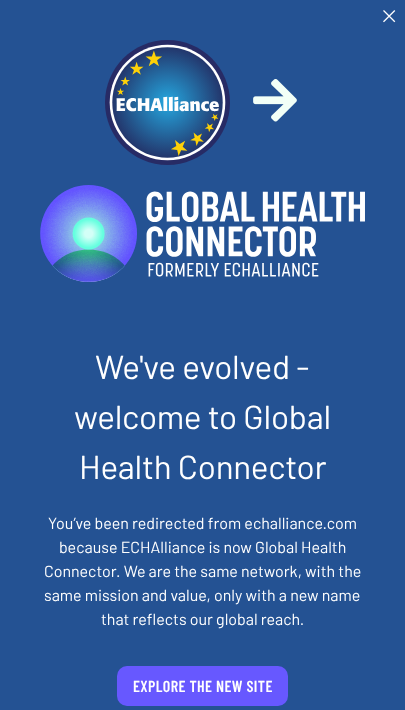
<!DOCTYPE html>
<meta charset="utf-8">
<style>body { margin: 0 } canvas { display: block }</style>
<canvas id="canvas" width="405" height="710"></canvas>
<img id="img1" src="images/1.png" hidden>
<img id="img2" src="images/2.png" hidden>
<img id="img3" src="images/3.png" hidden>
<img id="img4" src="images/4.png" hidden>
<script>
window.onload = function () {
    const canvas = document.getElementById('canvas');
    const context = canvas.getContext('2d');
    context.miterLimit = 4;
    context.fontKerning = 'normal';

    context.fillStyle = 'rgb(36, 82, 147)';
    context.fillRect(0, 0, 405, 710);
    context.drawImage(document.getElementById('img1'), 383, 10, 13, 13);
    context.drawImage(document.getElementById('img2'), 105, 40, 125, 125);
    context.drawImage(document.getElementById('img3'), 253, 79, 44, 43);
    context.drawImage(document.getElementById('img4'), 40, 185, 325, 97);
    context.fillStyle = 'rgb(103, 88, 255)';
    context.beginPath();
    context.roundRect(117, 666, 171, 40, 10);
    context.fill();
    context.letterSpacing = '-0.25px';
    context.font = '33.25px Barlow';
    context.fillStyle = 'rgb(255, 255, 255)';
    context.fillText('We\'ve evolved -', 95, 379);
    context.fillText('welcome to Global', 74, 429);
    context.fillText('Health Connector', 79, 479);
    context.letterSpacing = '0px';
    context.font = '16px Barlow';
    context.fillText('You’ve been redirected from echalliance.com', 48, 529);
    context.fillText('because ECHAlliance is now Global Health', 59, 553);
    context.fillText('Connector. We are the same network, with the', 44, 577);
    context.fillText('same mission and value, only with a new name', 44, 601);
    context.fillText('that reflects our global reach.', 101, 625);
    context.letterSpacing = '0.4px';
    context.font = '600 16px Barlow Condensed';
    context.fillText('EXPLORE THE NEW SITE', 133, 692);
};
</script>
